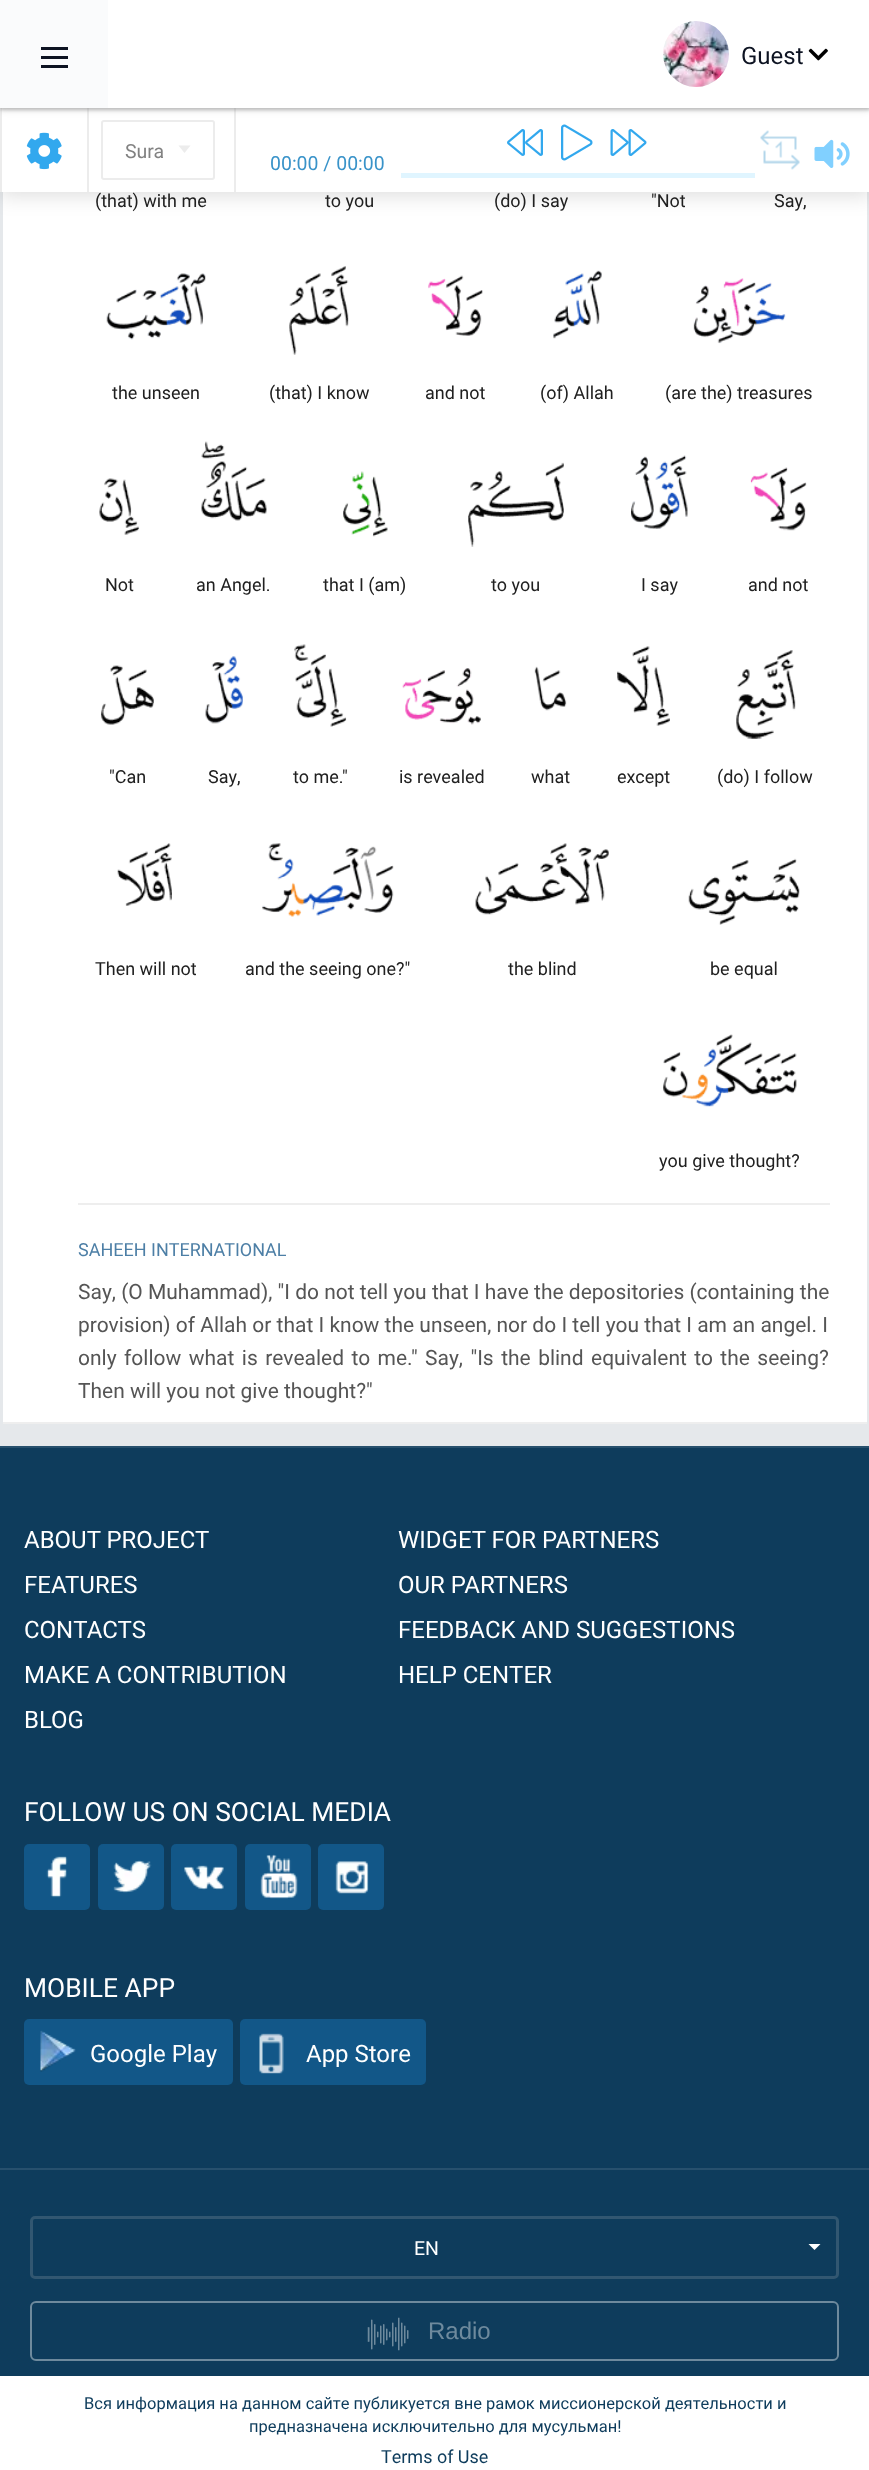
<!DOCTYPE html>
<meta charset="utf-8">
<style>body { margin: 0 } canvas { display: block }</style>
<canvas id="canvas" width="869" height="2470"></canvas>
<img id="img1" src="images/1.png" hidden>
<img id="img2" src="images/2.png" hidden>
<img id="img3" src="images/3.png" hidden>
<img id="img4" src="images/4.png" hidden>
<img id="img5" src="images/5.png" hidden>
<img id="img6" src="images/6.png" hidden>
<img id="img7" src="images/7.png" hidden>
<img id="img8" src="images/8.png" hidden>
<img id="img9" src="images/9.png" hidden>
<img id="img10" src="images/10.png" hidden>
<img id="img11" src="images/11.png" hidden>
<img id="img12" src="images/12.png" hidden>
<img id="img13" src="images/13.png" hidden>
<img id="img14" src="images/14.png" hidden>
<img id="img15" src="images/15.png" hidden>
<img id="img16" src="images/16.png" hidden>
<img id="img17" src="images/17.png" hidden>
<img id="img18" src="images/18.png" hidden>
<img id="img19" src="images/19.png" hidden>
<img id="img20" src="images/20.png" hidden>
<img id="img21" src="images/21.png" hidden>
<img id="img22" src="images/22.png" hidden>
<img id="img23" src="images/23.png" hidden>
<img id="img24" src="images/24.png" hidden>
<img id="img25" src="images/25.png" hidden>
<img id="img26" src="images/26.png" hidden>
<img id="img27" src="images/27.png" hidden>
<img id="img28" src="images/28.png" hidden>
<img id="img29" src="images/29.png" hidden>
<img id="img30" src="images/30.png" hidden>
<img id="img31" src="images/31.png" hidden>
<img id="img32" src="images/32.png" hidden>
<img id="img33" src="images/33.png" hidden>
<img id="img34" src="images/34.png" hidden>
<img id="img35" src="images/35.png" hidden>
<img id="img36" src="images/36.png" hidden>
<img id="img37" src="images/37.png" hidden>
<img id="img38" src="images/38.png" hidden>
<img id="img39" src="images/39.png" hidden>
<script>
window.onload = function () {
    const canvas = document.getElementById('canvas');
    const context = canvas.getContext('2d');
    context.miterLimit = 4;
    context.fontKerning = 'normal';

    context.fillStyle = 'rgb(229, 232, 235)';
    context.fillRect(0, 0, 869, 2470);
    context.fillStyle = 'rgb(255, 255, 255)';
    context.fillRect(3, 192, 864, 1230);
    context.fillStyle = 'rgba(0, 0, 0, 0.15)';
    context.filter = 'blur(11px)';
    context.beginPath();
    context.rect(-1, 107, 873, 87);
    context.fill();
    context.filter = 'none';
    context.fillStyle = 'rgb(255, 255, 255)';
    context.fillRect(2, 108, 867, 84);
    context.fillStyle = 'rgb(236, 236, 236)';
    context.fillRect(87, 108, 2, 84);
    context.fillRect(0, 108, 2, 84);
    context.fillRect(234, 108, 2, 84);
    context.fillStyle = 'rgba(0, 0, 0, 0.2)';
    context.filter = 'blur(1.5px)';
    context.beginPath();
    context.rect(0, 2, 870, 108);
    context.fill();
    context.filter = 'none';
    context.fillStyle = 'rgba(170, 170, 170, 0.5)';
    context.filter = 'blur(3px)';
    context.beginPath();
    context.rect(0, 2, 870, 108);
    context.fill();
    context.filter = 'none';
    context.fillStyle = 'rgb(255, 255, 255)';
    context.fillRect(108, 0, 761, 108);
    context.fillStyle = 'rgb(250, 251, 252)';
    context.fillRect(0, 0, 108, 108);
    context.fillStyle = 'rgb(13, 19, 34)';
    context.fillRect(41, 47, 27, 3);
    context.fillRect(41, 56, 27, 3);
    context.fillRect(41, 65, 27, 3);
    context.drawImage(document.getElementById('img1'), 663, 21, 66, 66);
    context.drawImage(document.getElementById('img2'), 808, 48, 20, 13);
    context.drawImage(document.getElementById('img3'), 26, 132, 36, 38);
    context.beginPath();
    context.roundRect(102, 121, 112, 58, 2);
    context.strokeStyle = 'rgb(236, 236, 236)';
    context.lineWidth = 2;
    context.stroke();
    context.fillStyle = 'rgb(236, 236, 236)';
    context.beginPath();
    context.moveTo(178.5, 145.5);
    context.lineTo(190.5, 145.5);
    context.lineTo(184.5, 153);
    context.closePath();
    context.fill();
    context.drawImage(document.getElementById('img4'), 507, 129, 36, 27);
    context.drawImage(document.getElementById('img5'), 561, 124, 32, 37);
    context.drawImage(document.getElementById('img6'), 610, 129, 37, 27);
    context.fillStyle = 'rgb(224, 245, 255)';
    context.fillRect(401, 173, 354, 5);
    context.drawImage(document.getElementById('img7'), 760, 130, 40, 40);
    context.drawImage(document.getElementById('img8'), 814, 139, 36, 29);
    context.fillStyle = 'rgb(238, 238, 238)';
    context.fillRect(3, 1422, 864, 2);
    context.drawImage(document.getElementById('img9'), 106, 273, 100, 67);
    context.drawImage(document.getElementById('img10'), 289, 266, 60, 89);
    context.drawImage(document.getElementById('img11'), 428, 275, 55, 61);
    context.drawImage(document.getElementById('img12'), 553, 270, 49, 69);
    context.drawImage(document.getElementById('img13'), 693, 278, 93, 66);
    context.drawImage(document.getElementById('img14'), 99, 478, 41, 57);
    context.drawImage(document.getElementById('img15'), 201, 441, 66, 80);
    context.drawImage(document.getElementById('img16'), 343, 471, 45, 66);
    context.drawImage(document.getElementById('img17'), 468, 462, 96, 85);
    context.drawImage(document.getElementById('img18'), 631, 455, 57, 74);
    context.drawImage(document.getElementById('img19'), 750, 467, 57, 64);
    context.drawImage(document.getElementById('img20'), 101, 665, 53, 60);
    context.drawImage(document.getElementById('img21'), 205, 656, 38, 68);
    context.drawImage(document.getElementById('img22'), 294, 644, 53, 83);
    context.drawImage(document.getElementById('img23'), 402, 668, 79, 57);
    context.drawImage(document.getElementById('img24'), 534, 666, 33, 45);
    context.drawImage(document.getElementById('img25'), 617, 646, 53, 80);
    context.drawImage(document.getElementById('img26'), 736, 650, 60, 89);
    context.drawImage(document.getElementById('img27'), 117, 843, 55, 63);
    context.drawImage(document.getElementById('img28'), 262, 843, 132, 74);
    context.drawImage(document.getElementById('img29'), 475, 843, 134, 72);
    context.drawImage(document.getElementById('img30'), 688, 858, 112, 67);
    context.drawImage(document.getElementById('img31'), 663, 1034, 134, 73);
    context.fillRect(78, 1203, 752, 2);
    context.fillStyle = 'rgb(14, 60, 92)';
    context.fillRect(0, 1448, 869, 720);
    context.fillStyle = 'rgb(39, 80, 109)';
    context.fillRect(0, 1446, 869, 2);
    context.fillStyle = 'rgb(18, 87, 136)';
    context.beginPath();
    context.roundRect(24, 1844, 66, 66, 5);
    context.fill();
    context.drawImage(document.getElementById('img32'), 46, 1856, 22, 42);
    context.beginPath();
    context.roundRect(98, 1844, 66, 66, 5);
    context.fill();
    context.drawImage(document.getElementById('img33'), 113, 1860, 39, 33);
    context.beginPath();
    context.roundRect(171, 1844, 66, 66, 5);
    context.fill();
    context.drawImage(document.getElementById('img34'), 184, 1865, 40, 25);
    context.beginPath();
    context.roundRect(245, 1844, 66, 66, 5);
    context.fill();
    context.drawImage(document.getElementById('img35'), 260, 1854, 38, 45);
    context.beginPath();
    context.roundRect(318, 1844, 66, 66, 5);
    context.fill();
    context.drawImage(document.getElementById('img36'), 335, 1861, 34, 33);
    context.beginPath();
    context.roundRect(24, 2019, 209, 66, 5);
    context.fill();
    context.drawImage(document.getElementById('img37'), 40, 2030, 36, 42);
    context.beginPath();
    context.roundRect(240, 2019, 186, 66, 5);
    context.fill();
    context.drawImage(document.getElementById('img38'), 259, 2033, 25, 41);
    context.fillStyle = 'rgb(14, 60, 92)';
    context.fillRect(0, 2170, 869, 206);
    context.fillStyle = 'rgb(39, 80, 109)';
    context.fillRect(0, 2168, 869, 2);
    context.beginPath();
    context.roundRect(31.5, 2217.5, 806, 60, 3.5);
    context.strokeStyle = 'rgb(50, 87, 113)';
    context.lineWidth = 3;
    context.stroke();
    context.fillStyle = 'rgb(255, 255, 255)';
    context.beginPath();
    context.moveTo(808.5, 2244);
    context.lineTo(820.5, 2244);
    context.lineTo(814.5, 2250);
    context.closePath();
    context.fill();
    context.beginPath();
    context.roundRect(31, 2302, 807, 58, 5);
    context.strokeStyle = 'rgb(110, 138, 157)';
    context.lineWidth = 2;
    context.stroke();
    context.drawImage(document.getElementById('img39'), 367, 2317, 42, 34);
    context.fillRect(0, 2376, 869, 94);
    context.font = '24px Roboto';
    context.fillStyle = 'rgb(13, 19, 34)';
    context.fillText('Guest', 741, 64);
    context.font = '19.5px Roboto';
    context.fillStyle = 'rgb(130, 130, 130)';
    context.fillText('Sura', 125, 158);
    context.fillStyle = 'rgb(57, 147, 201)';
    context.fillText('00:00 / 00:00', 270, 170);
    context.font = '18px Roboto';
    context.fillStyle = 'rgb(32, 32, 32)';
    context.fillText('(that) with me', 95, 207);
    context.fillText('to you', 325, 207);
    context.fillText('(do) I say', 494, 207);
    context.fillText('"Not', 651, 207);
    context.fillText('Say,', 774, 207);
    context.fillText('the unseen', 112, 399);
    context.fillText('(that) I know', 269, 399);
    context.fillText('and not', 425, 399);
    context.fillText('(of) Allah', 540, 399);
    context.fillText('(are the) treasures', 665, 399);
    context.fillText('Not', 105, 591);
    context.fillText('an Angel.', 196, 591);
    context.fillText('that I (am)', 323, 591);
    context.fillText('to you', 491, 591);
    context.fillText('I say', 641, 591);
    context.fillText('and not', 748, 591);
    context.fillText('"Can', 109, 783);
    context.fillText('Say,', 208, 783);
    context.fillText('to me."', 293, 783);
    context.fillText('is revealed', 399, 783);
    context.fillText('what', 531, 783);
    context.fillText('except', 617, 783);
    context.fillText('(do) I follow', 717, 783);
    context.fillText('Then will not', 95, 975);
    context.fillText('and the seeing one?"', 245, 975);
    context.fillText('the blind', 508, 975);
    context.fillText('be equal', 710, 975);
    context.fillText('you give thought?', 659, 1167);
    context.fillStyle = 'rgb(77, 127, 166)';
    context.fillText('SAHEEH INTERNATIONAL', 78, 1256);
    context.font = '21px Roboto';
    context.fillStyle = 'rgb(85, 85, 85)';
    context.fillText('Say, (O Muhammad), "I do not tell you that I have the depositories (containing the', 78, 1299);
    context.fillText('provision) of Allah or that I know the unseen, nor do I tell you that I am an angel. I', 78, 1332);
    context.wordSpacing = '2.25px';
    context.fillText('only follow what is revealed to me." Say, "Is the blind equivalent to the seeing?', 78, 1365);
    context.wordSpacing = '0px';
    context.fillText('Then will you not give thought?"', 78, 1398);
    context.font = '24px Roboto';
    context.fillStyle = 'rgb(255, 255, 255)';
    context.fillText('ABOUT PROJECT', 24, 1548);
    context.fillText('FEATURES', 24, 1593);
    context.fillText('CONTACTS', 24, 1638);
    context.fillText('MAKE A CONTRIBUTION', 24, 1683);
    context.fillText('BLOG', 24, 1728);
    context.fillText('WIDGET FOR PARTNERS', 398, 1548);
    context.fillText('OUR PARTNERS', 398, 1593);
    context.fillText('FEEDBACK AND SUGGESTIONS', 398, 1638);
    context.fillText('HELP CENTER', 398, 1683);
    context.font = '26.4px Roboto';
    context.fillText('FOLLOW US ON SOCIAL MEDIA', 24, 1821);
    context.fillText('MOBILE APP', 24, 1997);
    context.font = '24px Roboto';
    context.fillText('Google Play', 90, 2062);
    context.fillText('App Store', 306, 2062);
    context.font = '19.5px Roboto';
    context.fillText('EN', 414, 2255);
    context.font = '24px Liberation Sans';
    context.fillStyle = 'rgb(110, 138, 157)';
    context.fillText('Radio', 428, 2339);
    context.font = '16.5px Roboto';
    context.fillStyle = 'rgb(14, 60, 92)';
    context.fillText('Вся информация на данном сайте публикуется вне рамок миссионерской деятельности и', 84, 2409);
    context.fillText('предназначена исключительно для мусульман!', 249, 2432);
    context.font = '18px Roboto';
    context.fillText('Terms of Use', 381, 2463);
};
</script>
